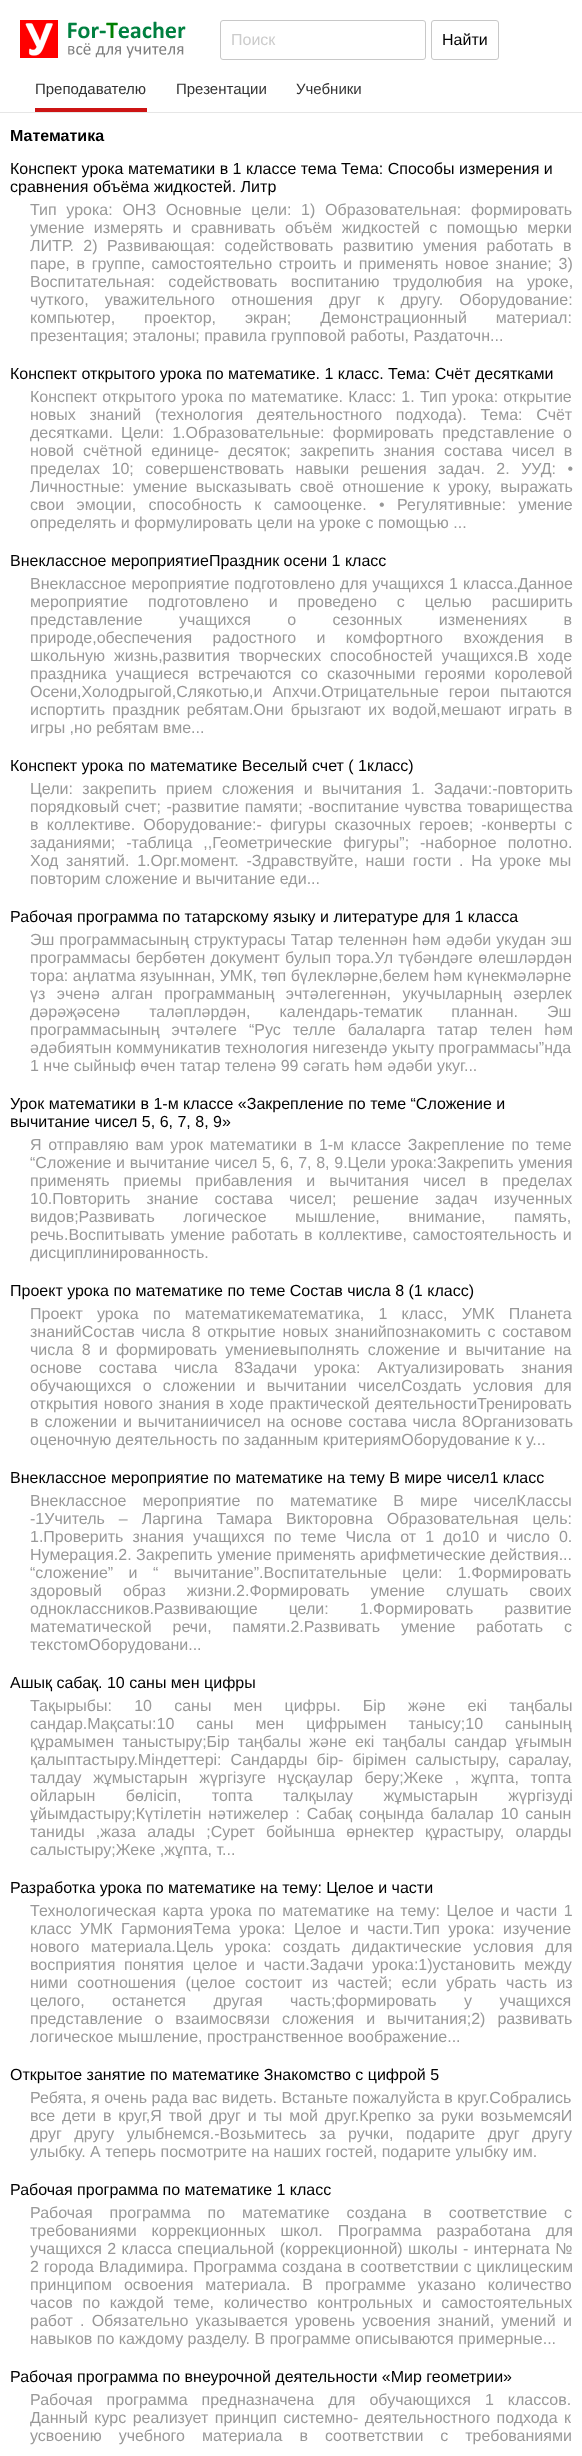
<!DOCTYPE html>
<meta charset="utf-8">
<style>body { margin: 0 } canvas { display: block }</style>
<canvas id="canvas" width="582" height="2456"></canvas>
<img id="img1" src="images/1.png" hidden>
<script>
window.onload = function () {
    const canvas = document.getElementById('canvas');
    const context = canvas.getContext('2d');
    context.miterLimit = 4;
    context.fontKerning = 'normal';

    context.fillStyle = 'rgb(255, 255, 255)';
    context.fillRect(0, 0, 582, 2456);
    context.fillStyle = 'rgb(230, 230, 230)';
    context.fillRect(0, 112, 582, 1);
    context.drawImage(document.getElementById('img1'), 20, 20, 166, 38);
    context.beginPath();
    context.roundRect(220.5, 20.5, 205, 39, 2.5);
    context.strokeStyle = 'rgb(200, 200, 200)';
    context.stroke();
    context.beginPath();
    context.roundRect(431.5, 20.5, 67, 39, 2.5);
    context.stroke();
    context.fillStyle = 'rgb(205, 20, 20)';
    context.fillRect(35, 108, 112, 4);
    context.font = '16px Liberation Sans';
    context.fillStyle = 'rgb(204, 204, 204)';
    context.fillText('Поиск', 231, 45);
    context.fillStyle = 'rgb(0, 0, 0)';
    context.fillText('Найти', 442, 45);
    context.font = '15px Liberation Sans';
    context.fillStyle = 'rgb(51, 51, 51)';
    context.fillText('Преподавателю', 35, 94);
    context.fillText('Презентации', 176, 94);
    context.fillText('Учебники', 296, 94);
    context.font = 'bold 16px Liberation Sans';
    context.fillStyle = 'rgb(0, 0, 0)';
    context.fillText('Математика', 10, 141);
    context.font = '16px Liberation Sans';
    context.fillText('Конспект урока математики в 1 классе тема Тема: Способы измерения и', 10, 174);
    context.fillText('сравнения объёма жидкостей. Литр', 10, 192);
    context.wordSpacing = '5.25px';
    context.fillStyle = 'rgb(153, 153, 153)';
    context.fillText('Тип урока: ОНЗ Основные цели: 1) Образовательная: формировать', 30, 215);
    context.wordSpacing = '5px';
    context.fillText('умение измерять и сравнивать объём жидкостей с помощью мерки', 30, 233);
    context.fillText('ЛИТР. 2) Развивающая: содействовать развитию умения работать в', 30, 251);
    context.wordSpacing = '2.25px';
    context.fillText('паре, в группе, самостоятельно строить и применять новое знание; 3)', 30, 269);
    context.wordSpacing = '9px';
    context.fillText('Воспитательная: содействовать воспитанию трудолюбия на уроке,', 30, 287);
    context.wordSpacing = '11.75px';
    context.fillText('чуткого, уважительного отношения друг к другу. Оборудование:', 30, 305);
    context.wordSpacing = '24.5px';
    context.fillText('компьютер, проектор, экран; Демонстрационный материал:', 30, 323);
    context.wordSpacing = '0px';
    context.fillText('презентация; эталоны; правила групповой работы, Раздаточн...', 30, 341);
    context.fillStyle = 'rgb(0, 0, 0)';
    context.fillText('Конспект открытого урока по математике. 1 класс. Тема: Счёт десятками', 10, 379);
    context.wordSpacing = '0.75px';
    context.fillStyle = 'rgb(153, 153, 153)';
    context.fillText('Конспект открытого урока по математике. Класс: 1. Тип урока: открытие', 30, 402);
    context.wordSpacing = '9.25px';
    context.fillText('новых знаний (технология деятельностного подхода). Тема: Счёт', 30, 420);
    context.wordSpacing = '3.75px';
    context.fillText('десятками. Цели: 1.Образовательные: формировать представление о', 30, 438);
    context.wordSpacing = '4.75px';
    context.fillText('новой счётной единице- десяток; закрепить знания состава чисел в', 30, 456);
    context.wordSpacing = '7px';
    context.fillText('пределах 10; совершенствовать навыки решения задач. 2. УУД: •', 30, 474);
    context.wordSpacing = '4px';
    context.fillText('Личностные: умение высказывать своё отношение к уроку, выражать', 30, 492);
    context.wordSpacing = '8px';
    context.fillText('свои эмоции, способность к самооценке. • Регулятивные: умение', 30, 510);
    context.wordSpacing = '0px';
    context.fillText('определять и формулировать цели на уроке с помощью ...', 30, 528);
    context.fillStyle = 'rgb(0, 0, 0)';
    context.fillText('Внеклассное мероприятиеПраздник осени 1 класс', 10, 566);
    context.wordSpacing = '0.5px';
    context.fillStyle = 'rgb(153, 153, 153)';
    context.fillText('Внеклассное мероприятие подготовлено для учащихся 1 класса.Данное', 30, 589);
    context.wordSpacing = '15.5px';
    context.fillText('мероприятие подготовлено и проведено с целью расширить', 30, 607);
    context.wordSpacing = '32px';
    context.fillText('представление учащихся о сезонных изменениях в', 30, 625);
    context.wordSpacing = '16px';
    context.fillText('природе,обеспечения радостного и комфортного вхождения в', 30, 643);
    context.wordSpacing = '4.5px';
    context.fillText('школьную жизнь,развития творческих способностей учащихся.В ходе', 30, 661);
    context.wordSpacing = '4.75px';
    context.fillText('праздника учащиеся встречаются со сказочными героями королевой', 30, 679);
    context.wordSpacing = '5.5px';
    context.fillText('Осени,Холодрыгой,Слякотью,и Апхчи.Отрицательные герои пытаются', 30, 697);
    context.wordSpacing = '2.75px';
    context.fillText('испортить праздник ребятам.Они брызгают их водой,мешают играть в', 30, 715);
    context.wordSpacing = '0px';
    context.fillText('игры ,но ребятам вме...', 30, 733);
    context.fillStyle = 'rgb(0, 0, 0)';
    context.fillText('Конспект урока по математике Веселый счет ( 1класс)', 10, 771);
    context.wordSpacing = '5px';
    context.fillStyle = 'rgb(153, 153, 153)';
    context.fillText('Цели: закрепить прием сложения и вычитания 1. Задачи:-повторить', 30, 794);
    context.wordSpacing = '1px';
    context.fillText('порядковый счет; -развитие памяти; -воспитание чувства товарищества', 30, 812);
    context.wordSpacing = '3.75px';
    context.fillText('в коллективе. Оборудование:- фигуры сказочных героев; -конверты с', 30, 830);
    context.wordSpacing = '6.5px';
    context.fillText('заданиями; -таблица ,,Геометрические фигуры”; -наборное полотно.', 30, 848);
    context.wordSpacing = '3.25px';
    context.fillText('Ход занятий. 1.Орг.момент. -Здравствуйте, наши гости . На уроке мы', 30, 866);
    context.wordSpacing = '0px';
    context.fillText('повторим сложение и вычитание еди...', 30, 884);
    context.fillStyle = 'rgb(0, 0, 0)';
    context.fillText('Рабочая программа по татарскому языку и литературе для 1 класса', 10, 922);
    context.wordSpacing = '0.5px';
    context.fillStyle = 'rgb(153, 153, 153)';
    context.fillText('Эш программасының структурасы Татар теленнән һәм әдәби укудан эш', 30, 945);
    context.wordSpacing = '0.75px';
    context.fillText('программасы бербөтен документ булып тора.Ул түбәндәге өлешләрдән', 30, 963);
    context.wordSpacing = '0px';
    context.fillText('тора: аңлатма язуыннан, УМК, төп бүлекләрне,белем һәм күнекмәләрне', 30, 981);
    context.wordSpacing = '7px';
    context.fillText('үз эченә алган программаның эчтәлегеннән, укучыларның әзерлек', 30, 999);
    context.wordSpacing = '24.5px';
    context.fillText('дәрәҗәсенә таләпләрдән, календарь-тематик планнан. Эш', 30, 1017);
    context.wordSpacing = '7.5px';
    context.fillText('программасының эчтәлеге “Рус телле балаларга татар телен һәм', 30, 1035);
    context.wordSpacing = '0px';
    context.fillText('әдәбиятын коммуникатив технология нигезендә укыту программасы”нда', 30, 1053);
    context.fillText('1 нче сыйныф өчен татар теленә 99 сәгать һәм әдәби укуг...', 30, 1071);
    context.fillStyle = 'rgb(0, 0, 0)';
    context.fillText('Урок математики в 1-м классе «Закрепление по теме “Сложение и', 10, 1109);
    context.fillText('вычитание чисел 5, 6, 7, 8, 9»', 10, 1127);
    context.wordSpacing = '2.25px';
    context.fillStyle = 'rgb(153, 153, 153)';
    context.fillText('Я отправляю вам урок математики в 1-м классе Закрепление по теме', 30, 1150);
    context.wordSpacing = '0.25px';
    context.fillText('“Сложение и вычитание чисел 5, 6, 7, 8, 9.Цели урока:Закрепить умения', 30, 1168);
    context.wordSpacing = '9.5px';
    context.fillText('применять приемы прибавления и вычитания чисел в пределах', 30, 1186);
    context.wordSpacing = '11.75px';
    context.fillText('10.Повторить знание состава чисел; решение задач изученных', 30, 1204);
    context.wordSpacing = '24px';
    context.fillText('видов;Развивать логическое мышление, внимание, память,', 30, 1222);
    context.wordSpacing = '1.5px';
    context.fillText('речь.Воспитывать умение работать в коллективе, самостоятельность и', 30, 1240);
    context.wordSpacing = '0px';
    context.fillText('дисциплинированность.', 30, 1258);
    context.fillStyle = 'rgb(0, 0, 0)';
    context.fillText('Проект урока по математике по теме Состав числа 8 (1 класс)', 10, 1296);
    context.wordSpacing = '9.75px';
    context.fillStyle = 'rgb(153, 153, 153)';
    context.fillText('Проект урока по математикематематика, 1 класс, УМК Планета', 30, 1319);
    context.wordSpacing = '2.25px';
    context.fillText('знанийСостав числа 8 открытие новых знанийпознакомить с составом', 30, 1337);
    context.wordSpacing = '3.75px';
    context.fillText('числа 8 и формировать умениевыполнять сложение и вычитание на', 30, 1355);
    context.wordSpacing = '12.5px';
    context.fillText('основе состава числа 8Задачи урока: Актуализировать знания', 30, 1373);
    context.wordSpacing = '6.75px';
    context.fillText('обучающихся о сложении и вычитании чиселСоздать условия для', 30, 1391);
    context.wordSpacing = '1px';
    context.fillText('открытия нового знания в ходе практической деятельностиТренировать', 30, 1409);
    context.wordSpacing = '1.5px';
    context.fillText('в сложении и вычитаниичисел на основе состава числа 8Организовать', 30, 1427);
    context.wordSpacing = '0px';
    context.fillText('оценочную деятельность по заданным критериямОборудование к у...', 30, 1445);
    context.fillStyle = 'rgb(0, 0, 0)';
    context.fillText('Внеклассное мероприятие по математике на тему В мире чисел1 класс', 10, 1483);
    context.wordSpacing = '11.5px';
    context.fillStyle = 'rgb(153, 153, 153)';
    context.fillText('Внеклассное мероприятие по математике В мире чиселКлассы', 30, 1506);
    context.wordSpacing = '9.5px';
    context.fillText('-1Учитель – Ларгина Тамара Викторовна Образовательная цель:', 30, 1524);
    context.wordSpacing = '4.6px';
    context.fillText('1.Проверить знания учащихся по теме Числа от 1 до10 и число 0.', 30, 1542);
    context.wordSpacing = '0px';
    context.fillText('Нумерация.2. Закрепить умение применять арифметические действия...', 30, 1560);
    context.wordSpacing = '11px';
    context.fillText('“сложение” и “ вычитание”.Воспитательные цели: 1.Формировать', 30, 1578);
    context.wordSpacing = '16.5px';
    context.fillText('здоровый образ жизни.2.Формировать умение слушать своих', 30, 1596);
    context.wordSpacing = '26.5px';
    context.fillText('одноклассников.Развивающие цели: 1.Формировать развитие', 30, 1614);
    context.wordSpacing = '16.5px';
    context.fillText('математической речи, памяти.2.Развивать умение работать с', 30, 1632);
    context.wordSpacing = '0px';
    context.fillText('текстомОборудовани...', 30, 1650);
    context.fillStyle = 'rgb(0, 0, 0)';
    context.fillText('Ашық сабақ. 10 саны мен цифры', 10, 1688);
    context.wordSpacing = '17.75px';
    context.fillStyle = 'rgb(153, 153, 153)';
    context.fillText('Тақырыбы: 10 саны мен цифры. Бір және екі таңбалы', 30, 1711);
    context.wordSpacing = '17.5px';
    context.fillText('сандар.Мақсаты:10 саны мен цифрымен танысу;10 санының', 30, 1729);
    context.wordSpacing = '3.75px';
    context.fillText('құрамымен таныстыру;Бір таңбалы және екі таңбалы сандар ұғымын', 30, 1747);
    context.wordSpacing = '4.5px';
    context.fillText('қалыптастыру.Міндеттері: Сандарды бір- бірімен салыстыру, саралау,', 30, 1765);
    context.wordSpacing = '7.25px';
    context.fillText('талдау жұмыстарын жүргізуге нұсқаулар беру;Жеке , жұпта, топта', 30, 1783);
    context.wordSpacing = '26px';
    context.fillText('ойларын бөлісіп, топта талқылау жұмыстарын жүргізуді', 30, 1801);
    context.wordSpacing = '2.5px';
    context.fillText('ұйымдастыру;Күтілетін нәтижелер : Сабақ соңында балалар 10 санын', 30, 1819);
    context.wordSpacing = '6.75px';
    context.fillText('таниды ,жаза алады ;Сурет бойынша өрнектер құрастыру, оларды', 30, 1837);
    context.wordSpacing = '0px';
    context.fillText('салыстыру;Жеке ,жұпта, т...', 30, 1855);
    context.fillStyle = 'rgb(0, 0, 0)';
    context.fillText('Разработка урока по математике на тему: Целое и части', 10, 1893);
    context.wordSpacing = '2px';
    context.fillStyle = 'rgb(153, 153, 153)';
    context.fillText('Технологическая карта урока по математике на тему: Целое и части 1', 30, 1916);
    context.wordSpacing = '4px';
    context.fillText('класс УМК ГармонияТема урока: Целое и части.Тип урока: изучение', 30, 1934);
    context.wordSpacing = '7px';
    context.fillText('нового материала.Цель урока: создать дидактические условия для', 30, 1952);
    context.wordSpacing = '4.25px';
    context.fillText('восприятия понятия целое и части.Задачи урока:1)установить между', 30, 1970);
    context.wordSpacing = '5px';
    context.fillText('ними соотношения (целое состоит из частей; если убрать часть из', 30, 1988);
    context.wordSpacing = '23px';
    context.fillText('целого, останется другая часть;формировать у учащихся', 30, 2006);
    context.wordSpacing = '7.5px';
    context.fillText('представление о взаимосвязи сложения и вычитания;2) развивать', 30, 2024);
    context.wordSpacing = '0px';
    context.fillText('логическое мышление, пространственное воображение...', 30, 2042);
    context.fillStyle = 'rgb(0, 0, 0)';
    context.fillText('Открытое занятие по математике Знакомство с цифрой 5', 10, 2080);
    context.fillStyle = 'rgb(153, 153, 153)';
    context.fillText('Ребята, я очень рада вас видеть. Встаньте пожалуйста в круг.Собрались', 30, 2103);
    context.wordSpacing = '2.4px';
    context.fillText('все дети в круг,Я твой друг и ты мой друг.Крепко за руки возьмемсяИ', 30, 2121);
    context.wordSpacing = '8px';
    context.fillText('друг другу улыбнемся.-Возьмитесь за ручки, подарите друг другу', 30, 2139);
    context.wordSpacing = '0px';
    context.fillText('улыбку. А теперь посмотрите на наших гостей, подарите улыбку им.', 30, 2157);
    context.fillStyle = 'rgb(0, 0, 0)';
    context.fillText('Рабочая программа по математике 1 класс', 10, 2195);
    context.wordSpacing = '12.5px';
    context.fillStyle = 'rgb(153, 153, 153)';
    context.fillText('Рабочая программа по математике создана в соответствие с', 30, 2218);
    context.wordSpacing = '10.5px';
    context.fillText('требованиями коррекционных школ. Программа разработана для', 30, 2236);
    context.wordSpacing = '1px';
    context.fillText('учащихся 2 класса специальной (коррекционной) школы - интерната №', 30, 2254);
    context.wordSpacing = '0.5px';
    context.fillText('2 города Владимира. Программа создана в соответствии с циклицеским', 30, 2272);
    context.wordSpacing = '7.5px';
    context.fillText('принципом освоения материала. В программе указано количество', 30, 2290);
    context.wordSpacing = '5.25px';
    context.fillText('часов по каждой теме, количество контрольных и самостоятельных', 30, 2308);
    context.wordSpacing = '2.75px';
    context.fillText('работ . Обязательно указывается уровень усвоения знаний, умений и', 30, 2326);
    context.wordSpacing = '0px';
    context.fillText('навыков по каждому разделу. В программе описываются примерные...', 30, 2344);
    context.fillStyle = 'rgb(0, 0, 0)';
    context.fillText('Рабочая программа по внеурочной деятельности «Мир геометрии»', 10, 2382);
    context.wordSpacing = '9.5px';
    context.fillStyle = 'rgb(153, 153, 153)';
    context.fillText('Рабочая программа предназначена для обучающихся 1 классов.', 30, 2405);
    context.wordSpacing = '2px';
    context.fillText('Данный курс реализует принцип системно- деятельностного подхода к', 30, 2423);
    context.wordSpacing = '12.5px';
    context.fillText('усвоению учебного материала в соответствии с требованиями', 30, 2441);
};
</script>
